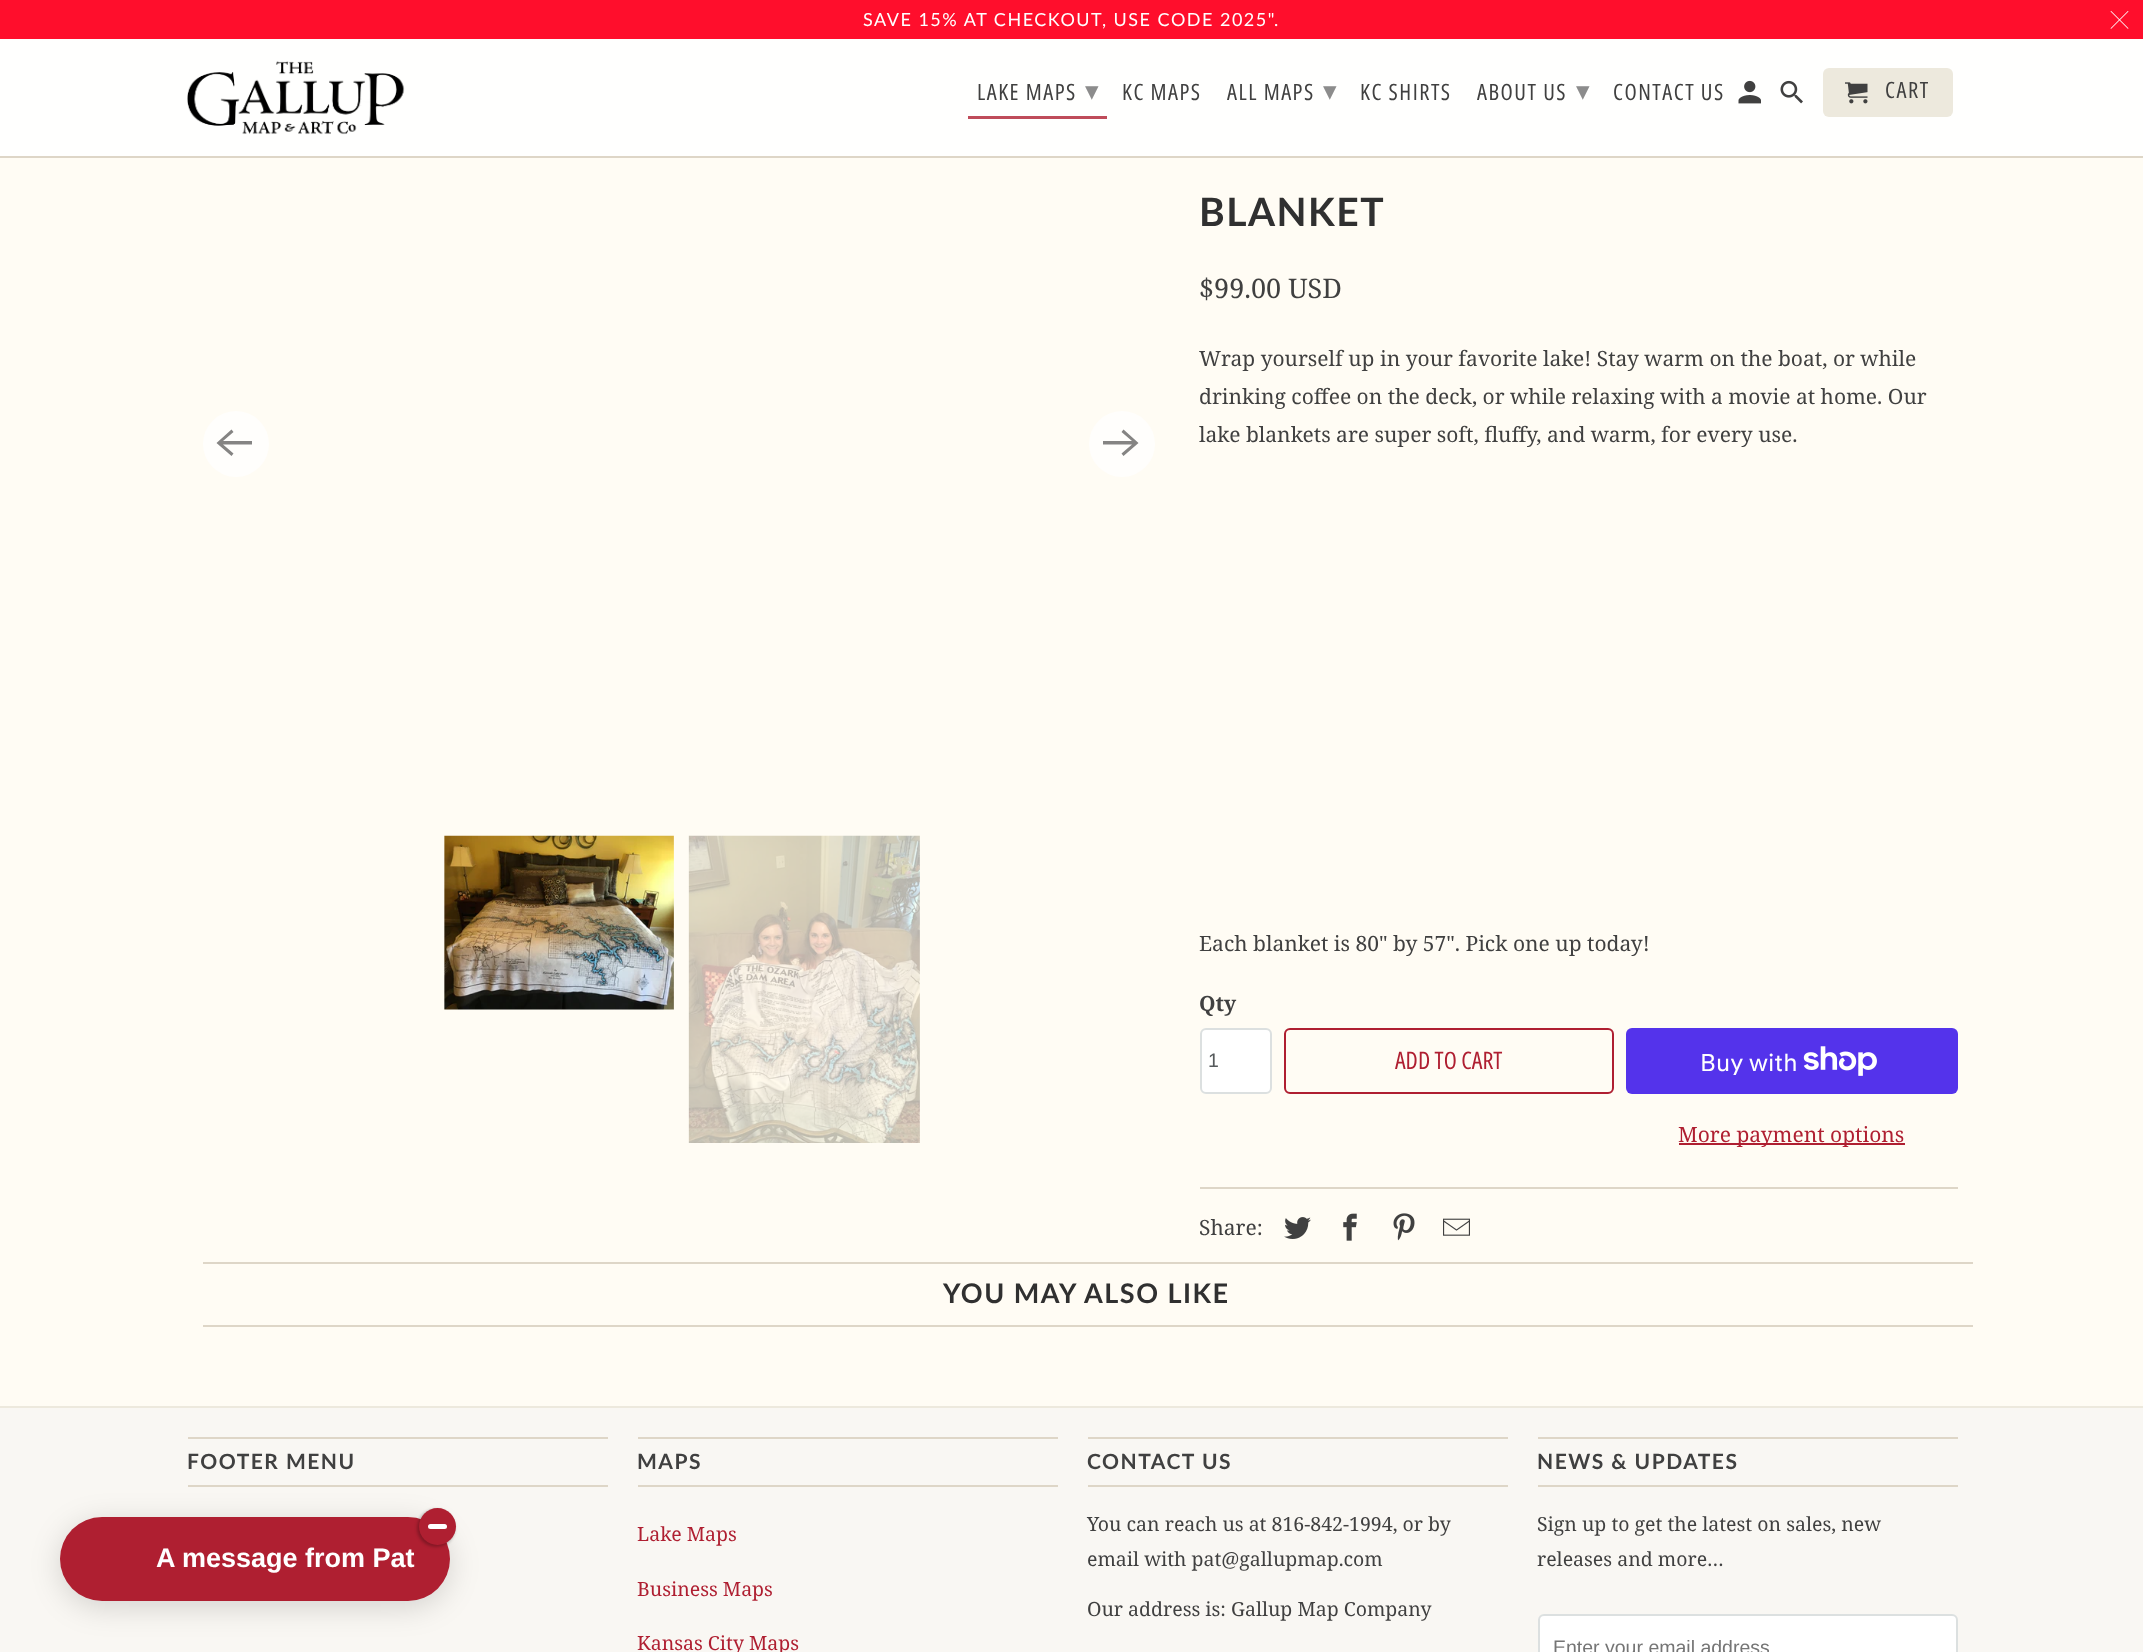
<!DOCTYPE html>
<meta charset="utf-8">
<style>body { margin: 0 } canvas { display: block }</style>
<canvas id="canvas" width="2143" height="1652"></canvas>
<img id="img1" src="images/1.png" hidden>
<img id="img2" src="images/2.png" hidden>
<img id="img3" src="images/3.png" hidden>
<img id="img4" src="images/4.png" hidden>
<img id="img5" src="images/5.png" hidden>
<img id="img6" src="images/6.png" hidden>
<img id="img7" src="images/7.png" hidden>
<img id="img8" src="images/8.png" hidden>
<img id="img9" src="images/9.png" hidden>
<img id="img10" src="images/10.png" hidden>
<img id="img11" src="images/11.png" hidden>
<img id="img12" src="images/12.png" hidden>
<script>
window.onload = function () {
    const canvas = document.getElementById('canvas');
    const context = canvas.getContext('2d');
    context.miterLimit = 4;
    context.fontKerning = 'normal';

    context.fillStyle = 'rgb(255, 252, 244)';
    context.fillRect(0, 0, 2143, 1652);
    context.fillStyle = 'rgba(255, 255, 255, 0.9)';
    context.fillRect(0, 39, 2143, 117);
    context.fillStyle = 'rgb(222, 214, 199)';
    context.fillRect(0, 156, 2143, 2);
    context.fillStyle = 'rgb(255, 14, 44)';
    context.fillRect(0, 0, 2143, 39);
    context.drawImage(document.getElementById('img1'), 2110, 11, 19, 18);
    context.drawImage(document.getElementById('img2'), 187, 61, 218, 74);
    context.fillStyle = 'rgb(191, 76, 90)';
    context.fillRect(968, 116, 139, 3);
    context.drawImage(document.getElementById('img3'), 1738, 80, 23, 24);
    context.drawImage(document.getElementById('img4'), 1780, 80, 23, 24);
    context.fillStyle = 'rgb(237, 233, 221)';
    context.beginPath();
    context.roundRect(1823, 68, 130, 49, 6);
    context.fill();
    context.drawImage(document.getElementById('img5'), 1845, 82, 23, 22);
    context.fillStyle = 'rgb(255, 254, 252)';
    context.beginPath();
    context.arc(236, 444, 33, 0, 2 * Math.PI);
    context.fill();
    context.fillStyle = 'rgb(133, 132, 131)';
    context.beginPath();
    context.moveTo(252, 441);
    context.lineTo(223, 441);
    context.lineTo(233.5, 432);
    context.lineTo(231.5, 429.5);
    context.lineTo(216.5, 443);
    context.lineTo(231.5, 456);
    context.lineTo(233.5, 453.5);
    context.lineTo(223, 444.5);
    context.lineTo(252, 444.5);
    context.closePath();
    context.fill();
    context.fillStyle = 'rgb(255, 254, 252)';
    context.beginPath();
    context.arc(1122, 444, 33, 0, 2 * Math.PI);
    context.fill();
    context.fillStyle = 'rgb(133, 132, 131)';
    context.beginPath();
    context.moveTo(1103, 444.5);
    context.lineTo(1132, 444.5);
    context.lineTo(1121.5, 453.5);
    context.lineTo(1123.5, 456);
    context.lineTo(1138.5, 443);
    context.lineTo(1123.5, 429.5);
    context.lineTo(1121.5, 432);
    context.lineTo(1132, 441);
    context.lineTo(1103, 441);
    context.closePath();
    context.fill();
    context.drawImage(document.getElementById('img6'), 444, 835, 230, 175);
    context.drawImage(document.getElementById('img7'), 688, 835, 232, 308);
    context.fillStyle = 'rgb(255, 255, 255)';
    context.beginPath();
    context.roundRect(1201, 1029, 70, 64, 5);
    context.fill();
    context.strokeStyle = 'rgb(220, 224, 224)';
    context.lineWidth = 2;
    context.stroke();
    context.beginPath();
    context.roundRect(1285, 1029, 328, 64, 5);
    context.strokeStyle = 'rgb(175, 31, 49)';
    context.stroke();
    context.fillStyle = 'rgb(84, 51, 235)';
    context.beginPath();
    context.roundRect(1626, 1028, 332, 66, 6);
    context.fill();
    context.drawImage(document.getElementById('img8'), 1803, 1046, 74, 30);
    context.fillStyle = 'rgb(175, 31, 49)';
    context.fillRect(1679, 1143, 226, 2);
    context.fillStyle = 'rgb(222, 214, 199)';
    context.fillRect(1200, 1187, 758, 2);
    context.drawImage(document.getElementById('img9'), 1284, 1217, 27, 22);
    context.drawImage(document.getElementById('img10'), 1343, 1213, 14, 28);
    context.drawImage(document.getElementById('img11'), 1393, 1213, 22, 28);
    context.drawImage(document.getElementById('img12'), 1443, 1218, 27, 18);
    context.fillRect(203, 1262, 1770, 2);
    context.fillRect(203, 1325, 1770, 2);
    context.fillStyle = 'rgb(249, 247, 243)';
    context.fillRect(0, 1408, 2143, 244);
    context.fillStyle = 'rgb(237, 233, 221)';
    context.fillRect(0, 1406, 2143, 2);
    context.fillStyle = 'rgb(222, 214, 199)';
    context.fillRect(188, 1437, 420, 2);
    context.fillRect(188, 1485, 420, 2);
    context.fillRect(638, 1437, 420, 2);
    context.fillRect(638, 1485, 420, 2);
    context.fillRect(1088, 1437, 420, 2);
    context.fillRect(1088, 1485, 420, 2);
    context.fillRect(1538, 1437, 420, 2);
    context.fillRect(1538, 1485, 420, 2);
    context.fillStyle = 'rgb(255, 255, 255)';
    context.beginPath();
    context.roundRect(1539, 1615, 418, 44, 5);
    context.fill();
    context.strokeStyle = 'rgb(220, 224, 224)';
    context.stroke();
    context.fillStyle = 'rgba(0, 0, 0, 0.15)';
    context.filter = 'blur(15px)';
    context.beginPath();
    context.roundRect(60, 1523, 390, 84, 42);
    context.fill();
    context.filter = 'none';
    context.fillStyle = 'rgb(175, 31, 49)';
    context.beginPath();
    context.roundRect(60, 1517, 390, 84, 42);
    context.fill();
    context.fillStyle = 'rgba(0, 0, 0, 0.25)';
    context.filter = 'blur(1.5px)';
    context.beginPath();
    context.roundRect(417, 1509, 38, 38, 19);
    context.fill();
    context.filter = 'none';
    context.fillStyle = 'rgb(175, 31, 49)';
    context.beginPath();
    context.arc(437.5, 1526.5, 18.5, 0, 2 * Math.PI);
    context.fill();
    context.fillStyle = 'rgb(255, 255, 255)';
    context.beginPath();
    context.roundRect(428, 1524, 19, 5, 2.5);
    context.fill();
    context.letterSpacing = '1.5px';
    context.font = '18px Lato';
    context.fillText('SAVE 15% AT CHECKOUT, USE CODE 2025".', 863, 26);
    context.font = '22.5px Open Sans Condensed';
    context.fillStyle = 'rgb(64, 64, 64)';
    context.fillText('LAKE MAPS', 977, 100);
    context.font = '27px DejaVu Sans';
    context.fillStyle = 'rgb(140, 140, 140)';
    context.fillText('▾', 1085, 100);
    context.font = '22.5px Open Sans Condensed';
    context.fillStyle = 'rgb(64, 64, 64)';
    context.fillText('KC MAPS', 1122, 100);
    context.fillText('ALL MAPS', 1227, 100);
    context.font = '27px DejaVu Sans';
    context.fillStyle = 'rgb(140, 140, 140)';
    context.fillText('▾', 1323, 100);
    context.font = '22.5px Open Sans Condensed';
    context.fillStyle = 'rgb(64, 64, 64)';
    context.fillText('KC SHIRTS', 1360, 100);
    context.fillText('ABOUT US', 1477, 100);
    context.font = '27px DejaVu Sans';
    context.fillStyle = 'rgb(140, 140, 140)';
    context.fillText('▾', 1576, 100);
    context.font = '22.5px Open Sans Condensed';
    context.fillStyle = 'rgb(64, 64, 64)';
    context.fillText('CONTACT US', 1613, 100);
    context.fillText('CART', 1885, 98);
    context.font = 'bold 39px Lato';
    context.fillStyle = 'rgb(48, 48, 48)';
    context.fillText('BLANKET', 1199, 226);
    context.letterSpacing = '0px';
    context.font = '27px Noto Serif';
    context.fillStyle = 'rgb(64, 64, 64)';
    context.fillText('$99.00 USD', 1199, 298);
    context.font = '21px Noto Serif';
    context.fillText('Wrap yourself up in your favorite lake! Stay warm on the boat, or while', 1199, 366);
    context.fillText('drinking coffee on the deck, or while relaxing with a movie at home. Our', 1199, 404);
    context.fillText('lake blankets are super soft, fluffy, and warm, for every use.', 1199, 442);
    context.fillText('Each blanket is 80" by 57". Pick one up today!', 1199, 951);
    context.font = 'bold 21px Noto Serif';
    context.fillText('Qty', 1199, 1011);
    context.font = '19.5px Liberation Sans';
    context.fillStyle = 'rgb(86, 90, 92)';
    context.fillText('1', 1208, 1067);
    context.font = '24px Open Sans Condensed';
    context.fillStyle = 'rgb(175, 31, 49)';
    context.fillText('ADD TO CART', 1395, 1069);
    context.font = '24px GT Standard';
    context.fillStyle = 'rgb(255, 255, 255)';
    context.fillText('Buy with', 1700, 1071);
    context.font = '21px Noto Serif';
    context.fillStyle = 'rgb(175, 31, 49)';
    context.fillText('More payment options', 1678, 1142);
    context.fillStyle = 'rgb(64, 64, 64)';
    context.fillText('Share:', 1199, 1235);
    context.letterSpacing = '1.5px';
    context.font = 'bold 27px Lato';
    context.fillStyle = 'rgb(48, 48, 48)';
    context.fillText('YOU MAY ALSO LIKE', 943, 1303);
    context.font = 'bold 21px Lato';
    context.fillStyle = 'rgb(64, 64, 64)';
    context.fillText('FOOTER MENU', 187, 1469);
    context.fillText('MAPS', 637, 1469);
    context.letterSpacing = '0px';
    context.font = '19.5px Noto Serif';
    context.fillStyle = 'rgb(175, 31, 49)';
    context.fillText('Lake Maps', 637, 1541);
    context.fillText('Business Maps', 637, 1596);
    context.fillText('Kansas City Maps', 637, 1650);
    context.letterSpacing = '1.5px';
    context.font = 'bold 21px Lato';
    context.fillStyle = 'rgb(64, 64, 64)';
    context.fillText('CONTACT US', 1087, 1469);
    context.letterSpacing = '0px';
    context.font = '19.5px Noto Serif';
    context.fillText('You can reach us at 816-842-1994, or by', 1087, 1531);
    context.fillText('email with pat@gallupmap.com', 1087, 1566);
    context.fillText('Our address is: Gallup Map Company', 1087, 1616);
    context.letterSpacing = '1.5px';
    context.font = 'bold 21px Lato';
    context.fillText('NEWS & UPDATES', 1537, 1469);
    context.letterSpacing = '0px';
    context.font = '19.5px Noto Serif';
    context.fillText('Sign up to get the latest on sales, new', 1537, 1531);
    context.fillText('releases and more…', 1537, 1566);
    context.font = '19.5px Liberation Sans';
    context.fillStyle = 'rgb(117, 117, 117)';
    context.fillText('Enter your email address', 1553, 1654);
    context.font = 'bold 27px Liberation Sans';
    context.fillStyle = 'rgb(255, 255, 255)';
    context.fillText('A message from Pat', 156, 1567);
};
</script>
